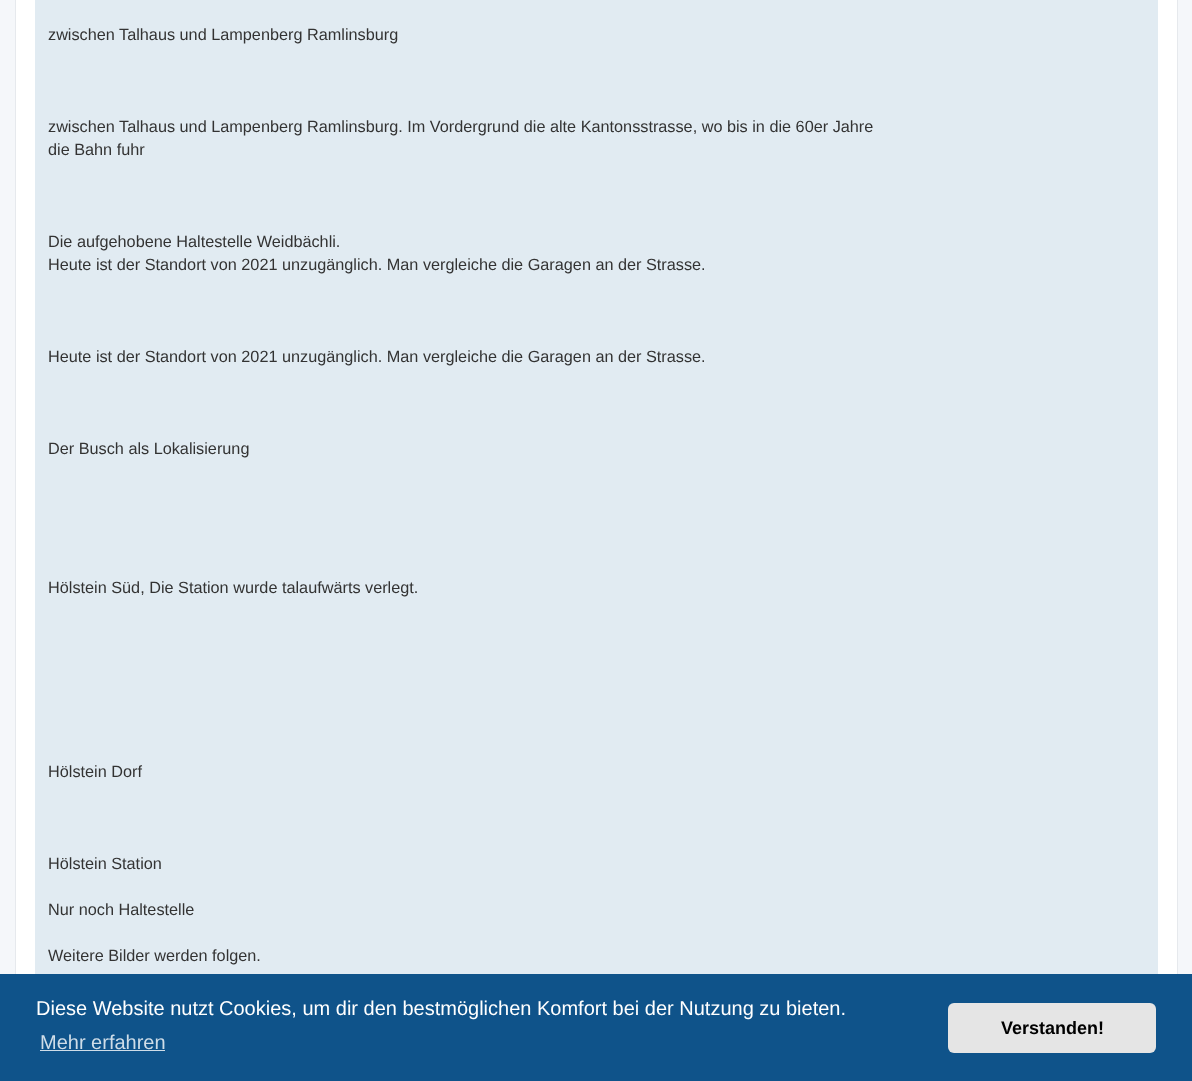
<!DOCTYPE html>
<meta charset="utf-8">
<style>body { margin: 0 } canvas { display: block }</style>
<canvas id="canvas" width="1192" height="1081"></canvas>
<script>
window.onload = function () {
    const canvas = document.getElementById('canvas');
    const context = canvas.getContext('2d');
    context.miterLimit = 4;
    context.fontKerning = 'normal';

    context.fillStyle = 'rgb(245, 247, 250)';
    context.fillRect(0, 0, 1192, 1081);
    context.fillStyle = 'rgb(255, 255, 255)';
    context.fillRect(16, 0, 1161, 974);
    context.strokeStyle = 'rgb(230, 233, 237)';
    context.strokeRect(15.5, -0.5, 1162, 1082);
    context.fillStyle = 'rgb(225, 235, 242)';
    context.fillRect(35, 0, 1123, 974);
    context.fillStyle = 'rgb(15, 83, 138)';
    context.fillRect(0, 974, 1192, 107);
    context.fillStyle = 'rgb(207, 221, 232)';
    context.fillRect(40, 1050, 125, 1);
    context.fillStyle = 'rgb(229, 229, 229)';
    context.beginPath();
    context.roundRect(948, 1003, 208, 50, 6);
    context.fill();
    context.font = '16.25px Liberation Sans';
    context.fillStyle = 'rgb(51, 51, 51)';
    context.fillText('zwischen Talhaus und Lampenberg Ramlinsburg', 48, 40);
    context.fillText('zwischen Talhaus und Lampenberg Ramlinsburg. Im Vordergrund die alte Kantonsstrasse, wo bis in die 60er Jahre', 48, 132);
    context.fillText('die Bahn fuhr', 48, 155);
    context.fillText('Die aufgehobene Haltestelle Weidbächli.', 48, 247);
    context.fillText('Heute ist der Standort von 2021 unzugänglich. Man vergleiche die Garagen an der Strasse.', 48, 270);
    context.fillText('Heute ist der Standort von 2021 unzugänglich. Man vergleiche die Garagen an der Strasse.', 48, 362);
    context.fillText('Der Busch als Lokalisierung', 48, 454);
    context.fillText('Hölstein Süd, Die Station wurde talaufwärts verlegt.', 48, 593);
    context.fillText('Hölstein Dorf', 48, 777);
    context.fillText('Hölstein Station', 48, 869);
    context.fillText('Nur noch Haltestelle', 48, 915);
    context.fillText('Weitere Bilder werden folgen.', 48, 961);
    context.font = '20px Liberation Sans';
    context.fillStyle = 'rgb(255, 255, 255)';
    context.fillText('Diese Website nutzt Cookies, um dir den bestmöglichen Komfort bei der Nutzung zu bieten.', 36, 1015);
    context.fillStyle = 'rgb(207, 221, 232)';
    context.fillText('Mehr erfahren', 40, 1049);
    context.font = 'bold 18px Liberation Sans';
    context.fillStyle = 'rgb(0, 0, 0)';
    context.fillText('Verstanden!', 1001, 1034);
};
</script>
